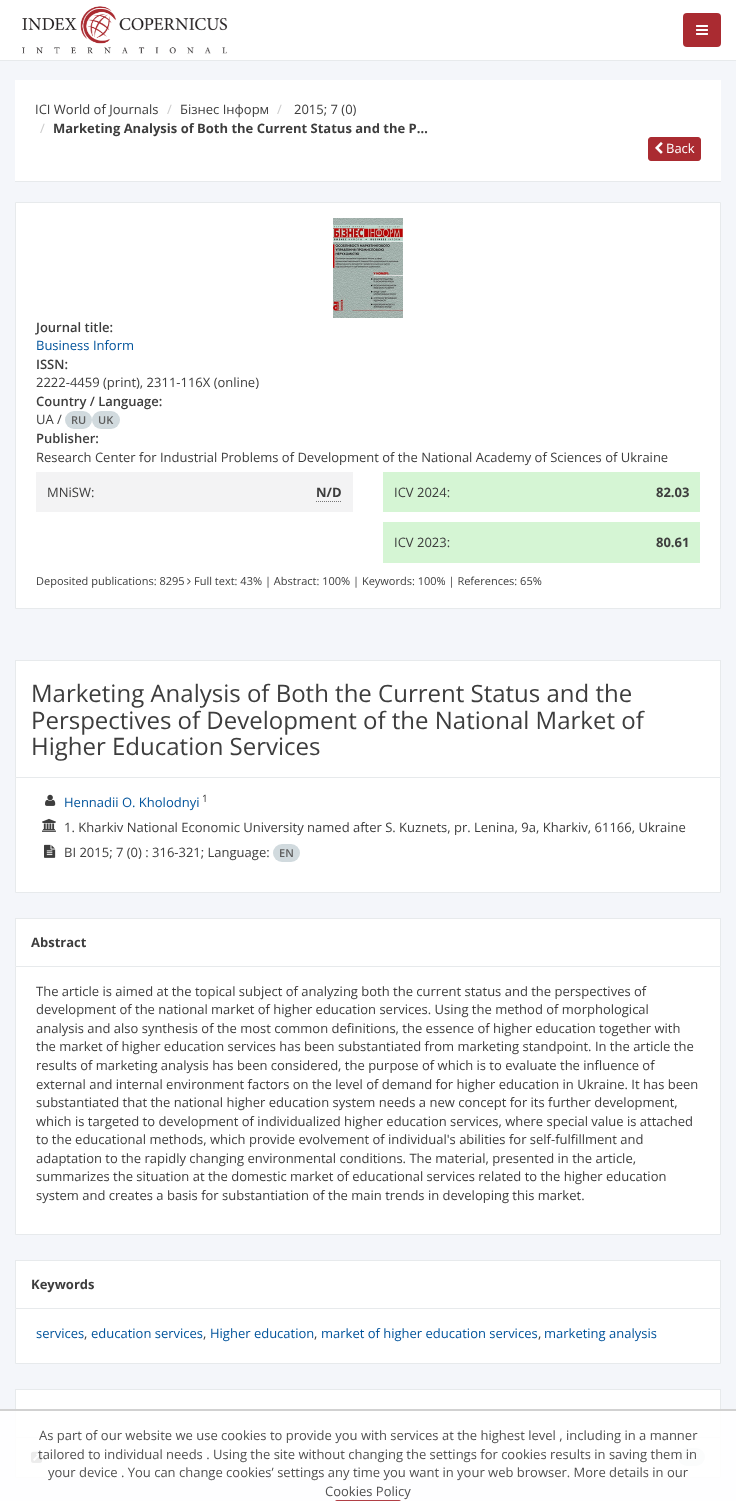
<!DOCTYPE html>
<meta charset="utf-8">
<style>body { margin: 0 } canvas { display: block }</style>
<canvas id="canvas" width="736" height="1501"></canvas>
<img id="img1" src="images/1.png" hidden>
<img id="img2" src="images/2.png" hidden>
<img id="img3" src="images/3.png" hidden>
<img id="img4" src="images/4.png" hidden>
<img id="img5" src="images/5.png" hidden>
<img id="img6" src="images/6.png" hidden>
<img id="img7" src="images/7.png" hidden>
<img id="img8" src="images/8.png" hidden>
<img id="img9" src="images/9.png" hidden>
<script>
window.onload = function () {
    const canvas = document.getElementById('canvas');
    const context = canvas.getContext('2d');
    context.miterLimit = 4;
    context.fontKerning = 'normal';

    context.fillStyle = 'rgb(244, 246, 250)';
    context.fillRect(0, 0, 736, 1501);
    context.fillStyle = 'rgb(255, 255, 255)';
    context.fillRect(0, 0, 736, 60);
    context.fillStyle = 'rgb(231, 234, 236)';
    context.fillRect(0, 60, 736, 1);
    context.drawImage(document.getElementById('img1'), 22, 6, 206, 48);
    context.fillStyle = 'rgb(170, 43, 49)';
    context.beginPath();
    context.roundRect(683, 13, 38, 34, 4);
    context.fill();
    context.drawImage(document.getElementById('img2'), 696, 25, 12, 10);
    context.fillStyle = 'rgb(255, 255, 255)';
    context.fillRect(15, 80, 706, 101);
    context.fillStyle = 'rgb(231, 234, 236)';
    context.fillRect(15, 181, 706, 1);
    context.fillStyle = 'rgb(170, 43, 49)';
    context.beginPath();
    context.roundRect(648.5, 137.5, 52, 23, 2.5);
    context.fill();
    context.strokeStyle = 'rgb(170, 43, 49)';
    context.stroke();
    context.drawImage(document.getElementById('img3'), 655, 142, 8, 12);
    context.fillStyle = 'rgb(255, 255, 255)';
    context.beginPath();
    context.rect(15.5, 202.5, 705, 406);
    context.fill();
    context.strokeStyle = 'rgb(231, 234, 236)';
    context.stroke();
    context.drawImage(document.getElementById('img4'), 333, 218, 70, 100);
    context.fillStyle = 'rgb(209, 218, 222)';
    context.beginPath();
    context.roundRect(65, 411, 27, 18, 9);
    context.fill();
    context.beginPath();
    context.roundRect(92, 411, 28, 18, 9);
    context.fill();
    context.fillStyle = 'rgb(243, 243, 244)';
    context.fillRect(36, 472, 317, 40);
    context.beginPath();
    context.moveTo(316, 501.5);
    context.lineTo(342, 501.5);
    context.strokeStyle = 'rgb(119, 119, 119)';
    context.setLineDash([1, 1]);
    context.stroke();
    context.fillStyle = 'rgb(213, 245, 212)';
    context.fillRect(383, 472, 317, 40);
    context.fillRect(383, 522, 317, 41);
    context.drawImage(document.getElementById('img5'), 187, 578, 4, 7);
    context.fillStyle = 'rgb(255, 255, 255)';
    context.fillRect(16, 661, 704, 116);
    context.fillStyle = 'rgb(231, 234, 236)';
    context.fillRect(15, 660, 706, 1);
    context.fillRect(720, 660, 1, 117);
    context.fillRect(15, 660, 1, 117);
    context.fillStyle = 'rgb(255, 255, 255)';
    context.beginPath();
    context.rect(15.5, 777.5, 705, 115);
    context.fill();
    context.strokeStyle = 'rgb(231, 234, 236)';
    context.setLineDash([]);
    context.stroke();
    context.drawImage(document.getElementById('img6'), 45, 794, 11, 12);
    context.drawImage(document.getElementById('img7'), 42, 818, 14, 14);
    context.drawImage(document.getElementById('img8'), 44, 844, 12, 14);
    context.fillStyle = 'rgb(209, 218, 222)';
    context.beginPath();
    context.roundRect(273, 844, 27, 18, 9);
    context.fill();
    context.fillStyle = 'rgb(255, 255, 255)';
    context.fillRect(16, 919, 704, 47);
    context.fillStyle = 'rgb(231, 234, 236)';
    context.fillRect(15, 918, 706, 1);
    context.fillRect(720, 918, 1, 48);
    context.fillRect(15, 918, 1, 48);
    context.fillStyle = 'rgb(255, 255, 255)';
    context.beginPath();
    context.rect(15.5, 966.5, 705, 268);
    context.fill();
    context.stroke();
    context.fillRect(16, 1261, 704, 47);
    context.fillStyle = 'rgb(231, 234, 236)';
    context.fillRect(15, 1260, 706, 1);
    context.fillRect(720, 1260, 1, 48);
    context.fillRect(15, 1260, 1, 48);
    context.fillStyle = 'rgb(255, 255, 255)';
    context.beginPath();
    context.rect(15.5, 1308.5, 705, 55);
    context.fill();
    context.stroke();
    context.fillRect(16, 1390, 704, 47);
    context.fillStyle = 'rgb(231, 234, 236)';
    context.fillRect(15, 1389, 706, 1);
    context.fillRect(720, 1389, 1, 48);
    context.fillRect(15, 1389, 1, 48);
    context.fillStyle = 'rgb(255, 255, 255)';
    context.beginPath();
    context.rect(15.5, 1437.5, 705, 40);
    context.fill();
    context.stroke();
    context.drawImage(document.getElementById('img9'), 31, 1451, 12, 12);
    context.fillStyle = 'rgb(209, 218, 222)';
    context.beginPath();
    context.roundRect(678, 1448, 27, 18, 9);
    context.fill();
    context.fillStyle = 'rgba(255, 255, 255, 0.9)';
    context.fillRect(0, 1409, 736, 92);
    context.fillStyle = 'rgba(204, 204, 204, 0.9)';
    context.fillRect(0, 1409, 736, 2);
    context.fillStyle = 'rgb(177, 63, 69)';
    context.beginPath();
    context.roundRect(335, 1500, 66, 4, 3);
    context.fill();
    context.font = '13px Open Sans';
    context.fillStyle = 'rgb(61, 61, 61)';
    context.fillText('ICI World of Journals', 35, 114);
    context.fillStyle = 'rgb(204, 204, 204)';
    context.fillText('/', 167, 114);
    context.fillStyle = 'rgb(61, 61, 61)';
    context.fillText('Бізнес Інформ', 180, 114);
    context.fillStyle = 'rgb(204, 204, 204)';
    context.fillText('/', 277, 114);
    context.fillStyle = 'rgb(61, 61, 61)';
    context.fillText('2015; 7 (0)', 294, 114);
    context.fillStyle = 'rgb(204, 204, 204)';
    context.fillText('/', 40, 133);
    context.font = 'bold 13px Open Sans';
    context.fillStyle = 'rgb(61, 61, 61)';
    context.fillText('Marketing Analysis of Both the Current Status and the P…', 53, 133);
    context.font = '13px Open Sans';
    context.fillStyle = 'rgb(255, 255, 255)';
    context.fillText('Back', 666, 153);
    context.font = '600 13px Open Sans';
    context.fillStyle = 'rgb(61, 61, 61)';
    context.fillText('Journal title:', 36, 332);
    context.font = '13px Open Sans';
    context.fillStyle = 'rgb(0, 83, 155)';
    context.fillText('Business Inform', 36, 350);
    context.font = '600 13px Open Sans';
    context.fillStyle = 'rgb(61, 61, 61)';
    context.fillText('ISSN:', 36, 369);
    context.font = '13px Open Sans';
    context.fillText('2222-4459 (print), 2311-116X (online)', 36, 387);
    context.font = '600 13px Open Sans';
    context.fillText('Country / Language:', 36, 406);
    context.font = '13px Open Sans';
    context.fillText('UA /', 36, 424);
    context.font = '600 11px Open Sans';
    context.fillStyle = 'rgb(94, 94, 94)';
    context.fillText('RU', 71, 424);
    context.fillText('UK', 98, 424);
    context.font = '600 13px Open Sans';
    context.fillStyle = 'rgb(61, 61, 61)';
    context.fillText('Publisher:', 36, 443);
    context.font = '13px Open Sans';
    context.fillText('Research Center for Industrial Problems of Development of the National Academy of Sciences of Ukraine', 36, 462);
    context.fillText('MNiSW:', 47, 497);
    context.font = 'bold 13px Open Sans';
    context.fillText('N/D', 316, 497);
    context.font = '13px Open Sans';
    context.fillText('ICV 2024:', 394, 497);
    context.font = 'bold 13px Open Sans';
    context.fillText('82.03', 656, 497);
    context.font = '13px Open Sans';
    context.fillText('ICV 2023:', 394, 547);
    context.font = 'bold 13px Open Sans';
    context.fillText('80.61', 656, 547);
    context.font = '11px Open Sans';
    context.fillText('Deposited publications: 8295', 36, 585);
    context.fillText('Full text: 43% | Abstract: 100% | Keywords: 100% | References: 65%', 194, 585);
    context.font = '24px Open Sans';
    context.fillText('Marketing Analysis of Both the Current Status and the', 31, 702);
    context.fillText('Perspectives of Development of the National Market of', 31, 729);
    context.fillText('Higher Education Services', 31, 755);
    context.font = '13px Open Sans';
    context.fillStyle = 'rgb(0, 83, 155)';
    context.fillText('Hennadii O. Kholodnyi', 64, 807);
    context.font = '10px Open Sans';
    context.fillStyle = 'rgb(61, 61, 61)';
    context.fillText('1', 202, 802);
    context.font = '13px Open Sans';
    context.fillText('1. Kharkiv National Economic University named after S. Kuznets, pr. Lenіna, 9a, Kharkiv, 61166, Ukraine', 64, 832);
    context.fillText('BI 2015; 7 (0) : 316-321; Language:', 64, 857);
    context.font = '600 11px Open Sans';
    context.fillStyle = 'rgb(94, 94, 94)';
    context.fillText('EN', 279, 857);
    context.font = 'bold 13px Open Sans';
    context.fillStyle = 'rgb(61, 61, 61)';
    context.fillText('Abstract', 31, 947);
    context.font = '13px Open Sans';
    context.fillText('The article is aimed at the topical subject of analyzing both the current status and the perspectives of', 36, 996);
    context.fillText('development of the national market of higher education services. Using the method of morphological', 36, 1014);
    context.fillText('analysis and also synthesis of the most common definitions, the essence of higher education together with', 36, 1033);
    context.fillText('the market of higher education services has been substantiated from marketing standpoint. In the article the', 36, 1051);
    context.fillText('results of marketing analysis has been considered, the purpose of which is to evaluate the influence of', 36, 1070);
    context.fillText('external and internal environment factors on the level of demand for higher education in Ukraine. It has been', 36, 1089);
    context.fillText('substantiated that the national higher education system needs a new concept for its further development,', 36, 1107);
    context.fillText('which is targeted to development of individualized higher education services, where special value is attached', 36, 1126);
    context.fillText('to the educational methods, which provide evolvement of individual\'s abilities for self-fulfillment and', 36, 1144);
    context.fillText('adaptation to the rapidly changing environmental conditions. The material, presented in the article,', 36, 1163);
    context.fillText('summarizes the situation at the domestic market of educational services related to the higher education', 36, 1181);
    context.fillText('system and creates a basis for substantiation of the main trends in developing this market.', 36, 1200);
    context.font = 'bold 13px Open Sans';
    context.fillText('Keywords', 31, 1289);
    context.font = '13px Open Sans';
    context.fillStyle = 'rgb(0, 83, 155)';
    context.fillText('services', 36, 1338);
    context.fillStyle = 'rgb(61, 61, 61)';
    context.fillText(',', 84, 1338);
    context.fillStyle = 'rgb(0, 83, 155)';
    context.fillText('education services', 91, 1338);
    context.fillStyle = 'rgb(61, 61, 61)';
    context.fillText(',', 203, 1338);
    context.fillStyle = 'rgb(0, 83, 155)';
    context.fillText('Higher education', 210, 1338);
    context.fillStyle = 'rgb(61, 61, 61)';
    context.fillText(',', 314, 1338);
    context.fillStyle = 'rgb(0, 83, 155)';
    context.fillText('market of higher education services', 321, 1338);
    context.fillStyle = 'rgb(61, 61, 61)';
    context.fillText(',', 538, 1338);
    context.fillStyle = 'rgb(0, 83, 155)';
    context.fillText('marketing analysis', 544, 1338);
    context.fillStyle = 'rgb(80, 80, 80)';
    context.fillText('As part of our website we use cookies to provide you with services at the highest level , including in a manner', 39, 1440);
    context.fillText('tailored to individual needs . Using the site without changing the settings for cookies results in saving them in', 38, 1459);
    context.fillText('your device . You can change cookies’ settings any time you want in your web browser. More details in our', 48, 1477);
    context.fillText('Cookies Policy', 325, 1496);
};
</script>
